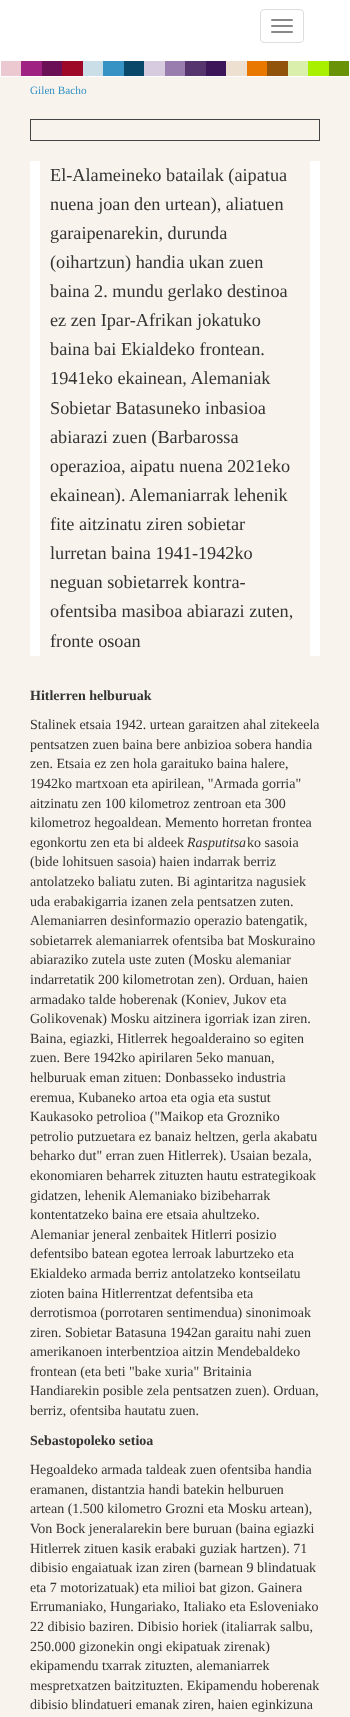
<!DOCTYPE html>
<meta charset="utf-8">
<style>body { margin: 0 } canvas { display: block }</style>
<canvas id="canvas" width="350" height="1717"></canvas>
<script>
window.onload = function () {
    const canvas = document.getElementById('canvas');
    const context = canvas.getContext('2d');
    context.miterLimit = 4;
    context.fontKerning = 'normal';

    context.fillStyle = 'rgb(248, 243, 237)';
    context.fillRect(0, 0, 350, 1717);
    context.fillStyle = 'rgb(255, 255, 255)';
    context.fillRect(0, 0, 350, 77);
    context.beginPath();
    context.roundRect(260.5, 9.5, 43, 33, 3.5);
    context.strokeStyle = 'rgb(221, 221, 221)';
    context.stroke();
    context.fillStyle = 'rgb(136, 136, 136)';
    context.beginPath();
    context.roundRect(271, 19, 22, 2, 1);
    context.fill();
    context.beginPath();
    context.roundRect(271, 25, 22, 2, 1);
    context.fill();
    context.beginPath();
    context.roundRect(271, 31, 22, 2, 1);
    context.fill();
    context.fillStyle = 'rgb(236, 201, 208)';
    context.fillRect(1, 61, 20, 15);
    context.fillStyle = 'rgb(159, 34, 131)';
    context.fillRect(21, 61, 21, 15);
    context.fillStyle = 'rgb(107, 15, 86)';
    context.fillRect(42, 61, 20, 15);
    context.fillStyle = 'rgb(158, 9, 39)';
    context.fillRect(62, 61, 21, 15);
    context.fillStyle = 'rgb(202, 222, 232)';
    context.fillRect(83, 61, 20, 15);
    context.fillStyle = 'rgb(54, 147, 195)';
    context.fillRect(103, 61, 21, 15);
    context.fillStyle = 'rgb(9, 72, 104)';
    context.fillRect(124, 61, 20, 15);
    context.fillStyle = 'rgb(215, 204, 223)';
    context.fillRect(144, 61, 21, 15);
    context.fillStyle = 'rgb(153, 125, 175)';
    context.fillRect(165, 61, 20, 15);
    context.fillStyle = 'rgb(86, 53, 111)';
    context.fillRect(185, 61, 21, 15);
    context.fillStyle = 'rgb(61, 22, 90)';
    context.fillRect(206, 61, 20, 15);
    context.fillStyle = 'rgb(237, 224, 209)';
    context.fillRect(226, 61, 21, 15);
    context.fillStyle = 'rgb(232, 120, 0)';
    context.fillRect(247, 61, 20, 15);
    context.fillStyle = 'rgb(145, 83, 10)';
    context.fillRect(267, 61, 21, 15);
    context.fillStyle = 'rgb(219, 239, 172)';
    context.fillRect(288, 61, 20, 15);
    context.fillStyle = 'rgb(169, 240, 0)';
    context.fillRect(308, 61, 21, 15);
    context.fillStyle = 'rgb(105, 146, 6)';
    context.fillRect(329, 61, 20, 15);
    context.strokeStyle = 'rgb(68, 68, 68)';
    context.strokeRect(30.5, 119.5, 289, 21);
    context.fillStyle = 'rgb(255, 255, 255)';
    context.fillRect(310, 161, 10, 495);
    context.fillRect(30, 161, 10, 495);
    context.font = '11.25px Liberation Serif';
    context.fillStyle = 'rgb(54, 147, 195)';
    context.fillText('Gilen Bacho', 30, 94);
    context.font = '18.25px Liberation Serif';
    context.fillStyle = 'rgb(51, 51, 51)';
    context.fillText('El-Alameineko batailak (aipatua', 50, 181);
    context.fillText('nuena joan den urtean), aliatuen', 50, 210);
    context.fillText('garaipenarekin, durunda', 50, 239);
    context.fillText('(oihartzun) handia ukan zuen', 50, 268);
    context.fillText('baina 2. mundu gerlako destinoa', 50, 297);
    context.fillText('ez zen Ipar-Afrikan jokatuko', 50, 326);
    context.fillText('baina bai Ekialdeko frontean.', 50, 355);
    context.fillText('1941eko ekainean, Alemaniak', 50, 384);
    context.fillText('Sobietar Batasuneko inbasioa', 50, 414);
    context.fillText('abiarazi zuen (Barbarossa', 50, 443);
    context.fillText('operazioa, aipatu nuena 2021eko', 50, 472);
    context.fillText('ekainean). Alemaniarrak lehenik', 50, 501);
    context.fillText('fite aitzinatu ziren sobietar', 50, 530);
    context.fillText('lurretan baina 1941-1942ko', 50, 559);
    context.fillText('neguan sobietarrek kontra-', 50, 588);
    context.fillText('ofentsiba masiboa abiarazi zuten,', 50, 617);
    context.fillText('fronte osoan', 50, 647);
    context.font = 'bold 14px Liberation Serif';
    context.fillText('Hitlerren helburuak', 30, 700);
    context.font = '14px Liberation Serif';
    context.fillText('Stalinek etsaia 1942. urtean garaitzen ahal zitekeela', 30, 729);
    context.fillText('pentsatzen zuen baina bere anbizioa sobera handia', 30, 749);
    context.fillText('zen. Etsaia ez zen hola garaituko baina halere,', 30, 768);
    context.fillText('1942ko martxoan eta apirilean, "Armada gorria"', 30, 788);
    context.fillText('aitzinatu zen 100 kilometroz zentroan eta 300', 30, 808);
    context.fillText('kilometroz hegoaldean. Memento horretan frontea', 30, 827);
    context.fillText('egonkortu zen eta bi aldeek', 30, 847);
    context.font = 'italic 14px Liberation Serif';
    context.fillText('Rasputitsa', 187, 847);
    context.font = '14px Liberation Serif';
    context.fillText('ko sasoia', 247, 847);
    context.fillText('(bide lohitsuen sasoia) haien indarrak berriz', 30, 866);
    context.fillText('antolatzeko baliatu zuten. Bi agintaritza nagusiek', 30, 886);
    context.fillText('uda erabakigarria izanen zela pentsatzen zuten.', 30, 906);
    context.fillText('Alemaniarren desinformazio operazio batengatik,', 30, 925);
    context.fillText('sobietarrek alemaniarrek ofentsiba bat Moskuraino', 30, 945);
    context.fillText('abiaraziko zutela uste zuten (Mosku alemaniar', 30, 964);
    context.fillText('indarretatik 200 kilometrotan zen). Orduan, haien', 30, 984);
    context.fillText('armadako talde hoberenak (Koniev, Jukov eta', 30, 1004);
    context.fillText('Golikovenak) Mosku aitzinera igorriak izan ziren.', 30, 1023);
    context.fillText('Baina, egiazki, Hitlerrek hegoalderaino so egiten', 30, 1043);
    context.fillText('zuen. Bere 1942ko apirilaren 5eko manuan,', 30, 1062);
    context.fillText('helburuak eman zituen: Donbasseko industria', 30, 1082);
    context.fillText('eremua, Kubaneko artoa eta ogia eta sustut', 30, 1102);
    context.fillText('Kaukasoko petrolioa ("Maikop eta Grozniko', 30, 1121);
    context.fillText('petrolio putzuetara ez banaiz heltzen, gerla akabatu', 30, 1141);
    context.fillText('beharko dut" erran zuen Hitlerrek). Usaian bezala,', 30, 1160);
    context.fillText('ekonomiaren beharrek zituzten hautu estrategikoak', 30, 1180);
    context.fillText('gidatzen, lehenik Alemaniako bizibeharrak', 30, 1200);
    context.fillText('kontentatzeko baina ere etsaia ahultzeko.', 30, 1219);
    context.fillText('Alemaniar jeneral zenbaitek Hitlerri posizio', 30, 1239);
    context.fillText('defentsibo batean egotea lerroak laburtzeko eta', 30, 1258);
    context.fillText('Ekialdeko armada berriz antolatzeko kontseilatu', 30, 1278);
    context.fillText('zioten baina Hitlerrentzat defentsiba eta', 30, 1298);
    context.fillText('derrotismoa (porrotaren sentimendua) sinonimoak', 30, 1317);
    context.fillText('ziren. Sobietar Batasuna 1942an garaitu nahi zuen', 30, 1337);
    context.fillText('amerikanoen interbentzioa aitzin Mendebaldeko', 30, 1356);
    context.fillText('frontean (eta beti "bake xuria" Britainia', 30, 1376);
    context.fillText('Handiarekin posible zela pentsatzen zuen). Orduan,', 30, 1395);
    context.fillText('berriz, ofentsiba hautatu zuen.', 30, 1415);
    context.font = 'bold 14px Liberation Serif';
    context.fillText('Sebastopoleko setioa', 30, 1445);
    context.font = '14px Liberation Serif';
    context.fillText('Hegoaldeko armada taldeak zuen ofentsiba handia', 30, 1474);
    context.fillText('eramanen, distantzia handi batekin helburuen', 30, 1494);
    context.fillText('artean (1.500 kilometro Grozni eta Mosku artean),', 30, 1513);
    context.fillText('Von Bock jeneralarekin bere buruan (baina egiazki', 30, 1533);
    context.fillText('Hitlerrek zituen kasik erabaki guziak hartzen). 71', 30, 1553);
    context.fillText('dibisio engaiatuak izan ziren (barnean 9 blindatuak', 30, 1572);
    context.fillText('eta 7 motorizatuak) eta milioi bat gizon. Gainera', 30, 1592);
    context.fillText('Errumaniako, Hungariako, Italiako eta Esloveniako', 30, 1611);
    context.fillText('22 dibisio baziren. Dibisio horiek (italiarrak salbu,', 30, 1631);
    context.fillText('250.000 gizonekin ongi ekipatuak zirenak)', 30, 1651);
    context.fillText('ekipamendu txarrak zituzten, alemaniarrek', 30, 1670);
    context.fillText('mespretxatzen baitzituzten. Ekipamendu hoberenak', 30, 1690);
    context.fillText('dibisio blindatueri emanak ziren, haien eginkizuna', 30, 1709);
};
</script>
